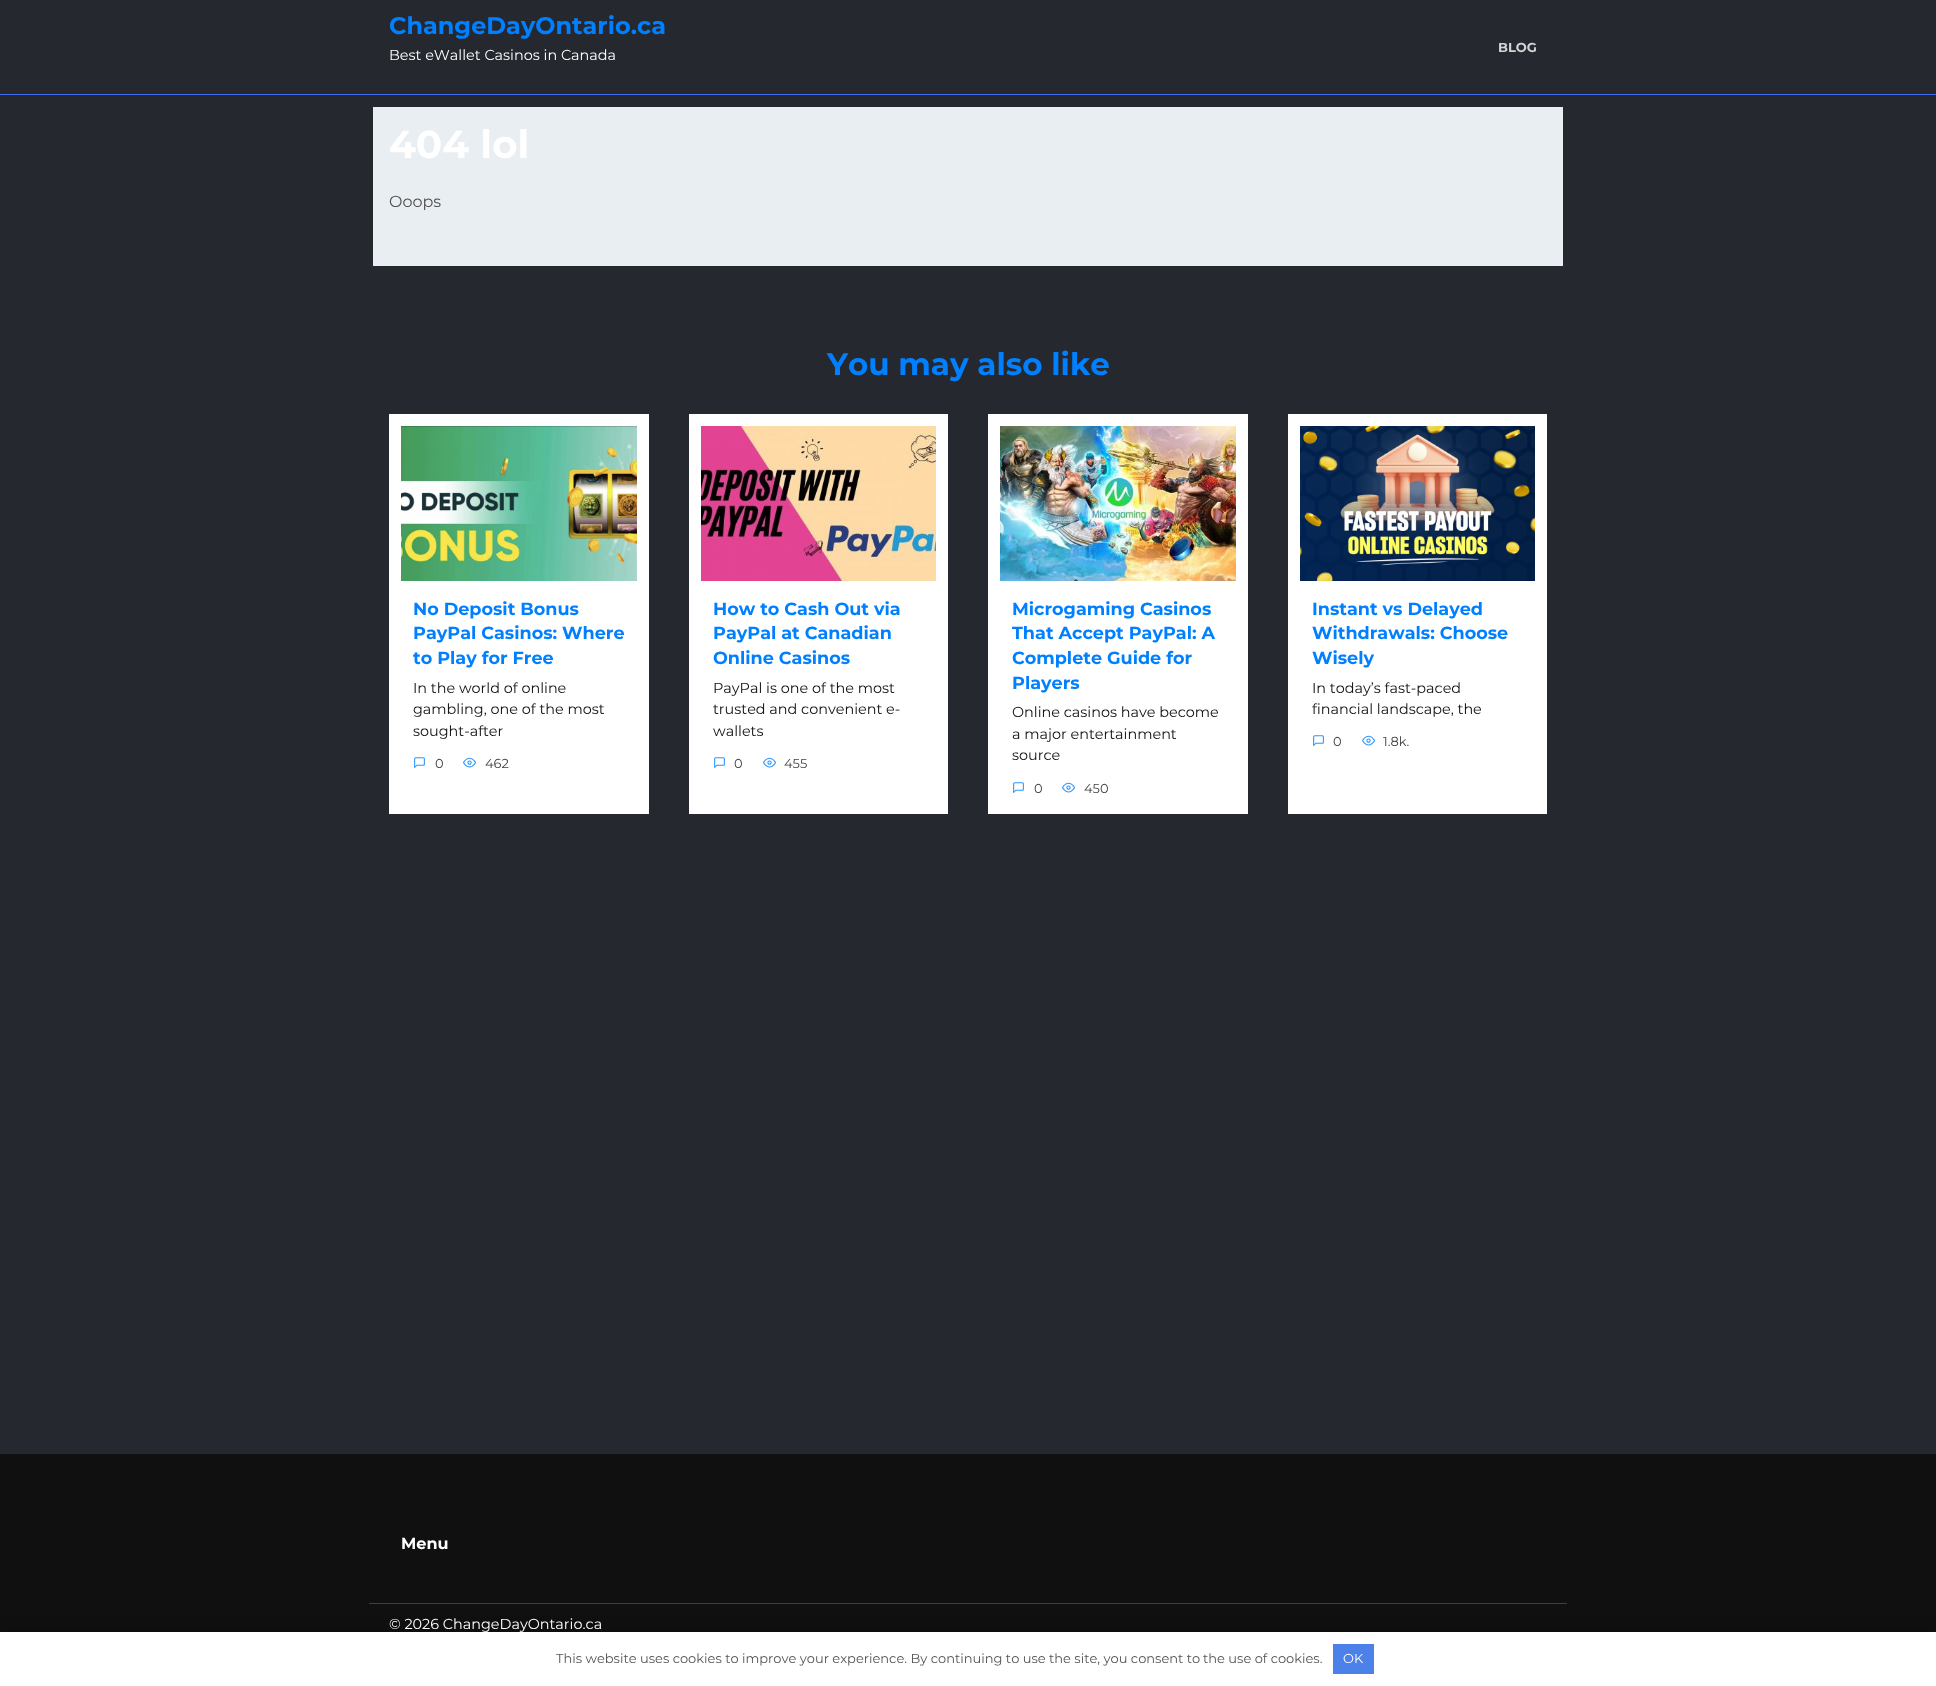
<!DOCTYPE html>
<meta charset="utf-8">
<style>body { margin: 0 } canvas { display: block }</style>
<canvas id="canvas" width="1936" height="1686"></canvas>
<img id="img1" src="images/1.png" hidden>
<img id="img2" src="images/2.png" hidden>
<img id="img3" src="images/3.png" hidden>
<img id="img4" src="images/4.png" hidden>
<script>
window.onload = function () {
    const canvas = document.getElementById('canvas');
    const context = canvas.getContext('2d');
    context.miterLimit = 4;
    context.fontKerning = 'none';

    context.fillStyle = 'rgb(38, 40, 48)';
    context.fillRect(0, 0, 1936, 1686);
    context.fillStyle = 'rgb(67, 106, 243)';
    context.fillRect(0, 94, 1936, 1);
    context.fillStyle = 'rgb(233, 238, 242)';
    context.fillRect(373, 107, 1190, 159);
    context.fillStyle = 'rgb(255, 255, 255)';
    context.fillRect(389, 414, 260, 400);
    context.drawImage(document.getElementById('img1'), 401, 426, 236, 155);
    context.fillRect(689, 414, 259, 400);
    context.drawImage(document.getElementById('img2'), 701, 426, 235, 155);
    context.fillRect(988, 414, 260, 400);
    context.drawImage(document.getElementById('img3'), 1000, 426, 236, 155);
    context.fillRect(1288, 414, 259, 400);
    context.drawImage(document.getElementById('img4'), 1300, 426, 235, 155);
    context.fillStyle = 'rgb(16, 16, 16)';
    context.fillRect(0, 1454, 1936, 178);
    context.fillStyle = 'rgb(64, 64, 64)';
    context.fillRect(369, 1603, 1198, 1);
    context.fillStyle = 'rgba(0, 0, 0, 0.2)';
    context.filter = 'blur(7.5px)';
    context.beginPath();
    context.rect(0, 1632, 1936, 54);
    context.fill();
    context.filter = 'none';
    context.fillStyle = 'rgb(255, 255, 255)';
    context.fillRect(0, 1632, 1936, 54);
    context.fillStyle = 'rgb(75, 129, 232)';
    context.fillRect(1333, 1644, 41, 30);
    context.font = 'bold 24px Montserrat';
    context.fillStyle = 'rgb(0, 128, 255)';
    context.fillText('ChangeDayOntario.ca', 389, 34);
    context.font = '14.4px Montserrat';
    context.fillStyle = 'rgb(255, 255, 255)';
    context.fillText('Best eWallet Casinos in Canada', 389, 60);
    context.font = 'bold 13px Montserrat';
    context.fillStyle = 'rgb(212, 212, 214)';
    context.fillText('BLOG', 1498, 52);
    context.font = 'bold 39px Montserrat';
    context.fillStyle = 'rgb(255, 255, 255)';
    context.fillText('404 lol', 389, 158);
    context.font = '16px Montserrat';
    context.fillStyle = 'rgb(79, 79, 79)';
    context.fillText('Ooops', 389, 207);
    context.font = 'bold 31px Montserrat';
    context.fillStyle = 'rgb(0, 128, 255)';
    context.fillText('You may also like', 827, 375);
    context.font = 'bold 17.6px Montserrat';
    context.fillText('No Deposit Bonus', 413, 615);
    context.fillText('PayPal Casinos: Where', 413, 639);
    context.fillText('to Play for Free', 413, 664);
    context.font = '14.4px Montserrat';
    context.fillStyle = 'rgb(17, 17, 17)';
    context.fillText('In the world of online', 413, 693);
    context.fillText('gambling, one of the most', 413, 714);
    context.fillText('sought-after', 413, 736);
    context.font = '13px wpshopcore';
    context.fillStyle = 'rgb(51, 153, 254)';
    context.fillText('💬', 413, 768);
    context.font = '13px Montserrat';
    context.fillStyle = 'rgb(65, 65, 65)';
    context.fillText('0', 435, 768);
    context.font = '13px wpshopcore';
    context.fillStyle = 'rgb(51, 153, 254)';
    context.fillText('👀', 463, 768);
    context.font = '13px Montserrat';
    context.fillStyle = 'rgb(65, 65, 65)';
    context.fillText('462', 485, 768);
    context.font = 'bold 17.6px Montserrat';
    context.fillStyle = 'rgb(0, 128, 255)';
    context.fillText('How to Cash Out via', 713, 615);
    context.fillText('PayPal at Canadian', 713, 639);
    context.fillText('Online Casinos', 713, 664);
    context.font = '14.4px Montserrat';
    context.fillStyle = 'rgb(17, 17, 17)';
    context.fillText('PayPal is one of the most', 713, 693);
    context.fillText('trusted and convenient e-', 713, 714);
    context.fillText('wallets', 713, 736);
    context.font = '13px wpshopcore';
    context.fillStyle = 'rgb(51, 153, 254)';
    context.fillText('💬', 713, 768);
    context.font = '13px Montserrat';
    context.fillStyle = 'rgb(65, 65, 65)';
    context.fillText('0', 734, 768);
    context.font = '13px wpshopcore';
    context.fillStyle = 'rgb(51, 153, 254)';
    context.fillText('👀', 763, 768);
    context.font = '13px Montserrat';
    context.fillStyle = 'rgb(65, 65, 65)';
    context.fillText('455', 784, 768);
    context.font = 'bold 17.6px Montserrat';
    context.fillStyle = 'rgb(0, 128, 255)';
    context.fillText('Microgaming Casinos', 1012, 615);
    context.fillText('That Accept PayPal: A', 1012, 639);
    context.fillText('Complete Guide for', 1012, 664);
    context.fillText('Players', 1012, 689);
    context.font = '14.4px Montserrat';
    context.fillStyle = 'rgb(17, 17, 17)';
    context.fillText('Online casinos have become', 1012, 717);
    context.fillText('a major entertainment', 1012, 739);
    context.fillText('source', 1012, 760);
    context.font = '13px wpshopcore';
    context.fillStyle = 'rgb(51, 153, 254)';
    context.fillText('💬', 1012, 793);
    context.font = '13px Montserrat';
    context.fillStyle = 'rgb(65, 65, 65)';
    context.fillText('0', 1034, 793);
    context.font = '13px wpshopcore';
    context.fillStyle = 'rgb(51, 153, 254)';
    context.fillText('👀', 1062, 793);
    context.font = '13px Montserrat';
    context.fillStyle = 'rgb(65, 65, 65)';
    context.fillText('450', 1084, 793);
    context.font = 'bold 17.6px Montserrat';
    context.fillStyle = 'rgb(0, 128, 255)';
    context.fillText('Instant vs Delayed', 1312, 615);
    context.fillText('Withdrawals: Choose', 1312, 639);
    context.fillText('Wisely', 1312, 664);
    context.font = '14.4px Montserrat';
    context.fillStyle = 'rgb(17, 17, 17)';
    context.fillText('In today’s fast-paced', 1312, 693);
    context.fillText('financial landscape, the', 1312, 714);
    context.font = '13px wpshopcore';
    context.fillStyle = 'rgb(51, 153, 254)';
    context.fillText('💬', 1312, 746);
    context.font = '13px Montserrat';
    context.fillStyle = 'rgb(65, 65, 65)';
    context.fillText('0', 1333, 746);
    context.font = '13px wpshopcore';
    context.fillStyle = 'rgb(51, 153, 254)';
    context.fillText('👀', 1362, 746);
    context.font = '13px Montserrat';
    context.fillStyle = 'rgb(65, 65, 65)';
    context.fillText('1.8k.', 1383, 746);
    context.font = 'bold 16px Montserrat';
    context.fillStyle = 'rgb(255, 255, 255)';
    context.fillText('Menu', 401, 1549);
    context.font = '14.4px Montserrat';
    context.fillText('© 2026 ChangeDayOntario.ca', 389, 1629);
    context.font = '13px Montserrat';
    context.fillStyle = 'rgb(85, 85, 85)';
    context.fillText('This website uses cookies to improve your experience. By continuing to use the site, you consent to', 556, 1663);
    context.fillText('the use of cookies.', 1203, 1663);
    context.fillStyle = 'rgb(255, 255, 255)';
    context.fillText('OK', 1343, 1663);
};
</script>
